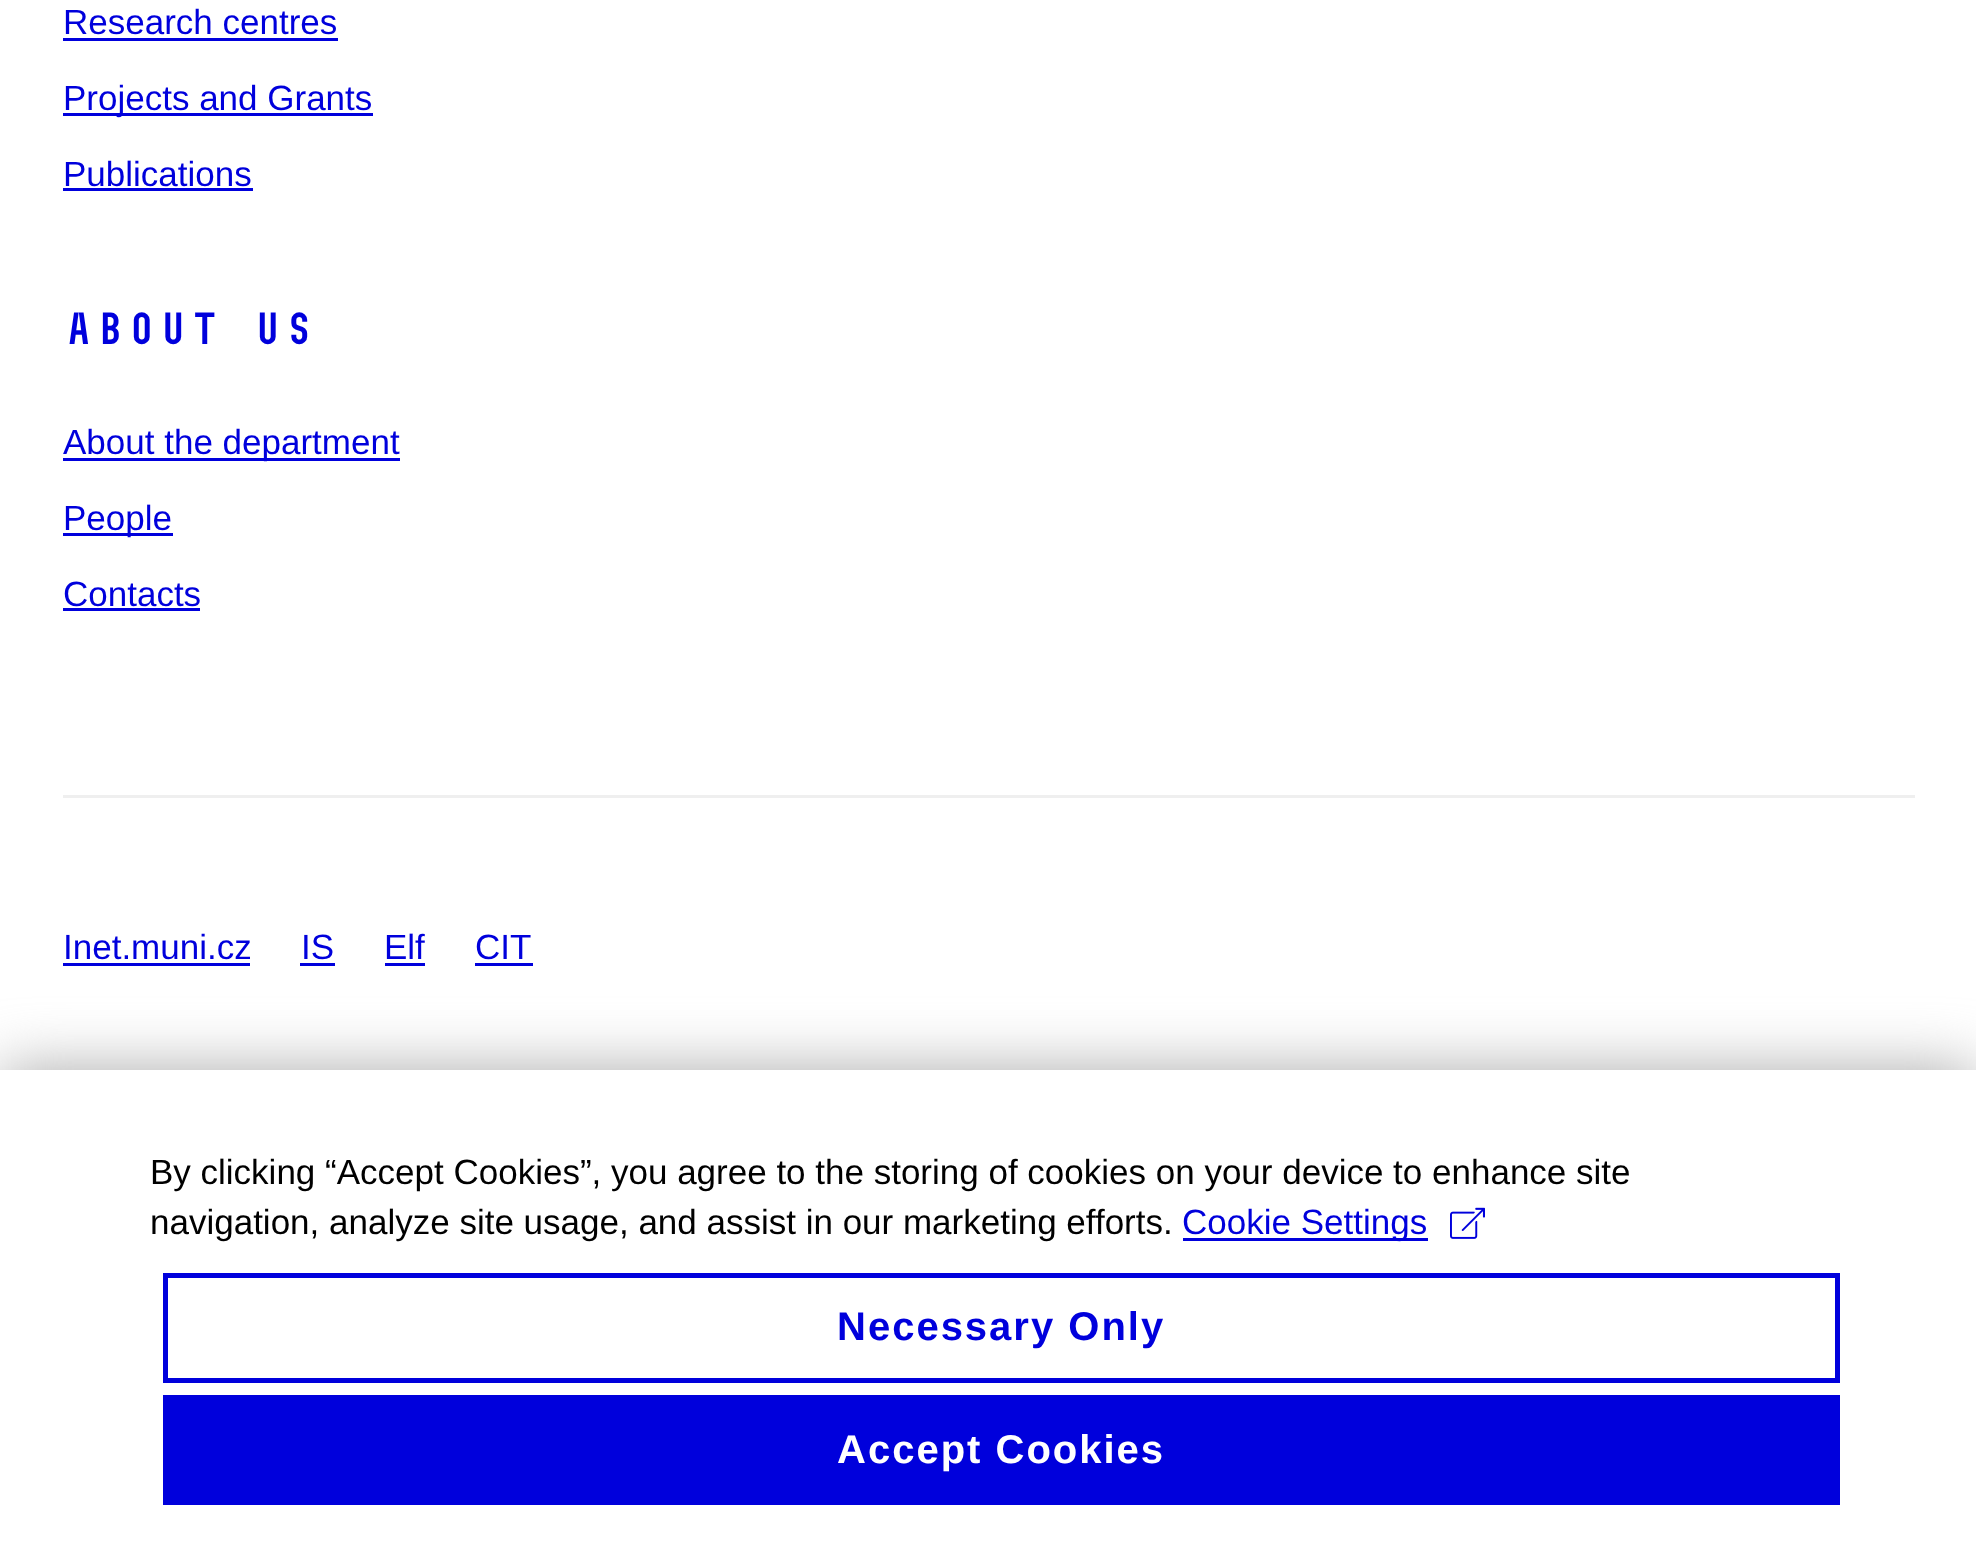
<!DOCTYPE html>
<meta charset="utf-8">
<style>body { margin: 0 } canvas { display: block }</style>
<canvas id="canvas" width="1976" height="1566"></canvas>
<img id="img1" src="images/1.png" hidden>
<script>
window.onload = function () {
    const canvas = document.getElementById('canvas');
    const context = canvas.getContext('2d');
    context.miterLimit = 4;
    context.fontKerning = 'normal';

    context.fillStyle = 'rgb(255, 255, 255)';
    context.fillRect(0, 0, 1976, 1566);
    context.fillStyle = 'rgb(239, 239, 239)';
    context.fillRect(63, 795, 1852, 3);
    context.fillStyle = 'rgb(0, 0, 220)';
    context.fillRect(63, 38, 275, 3);
    context.fillRect(63, 113, 310, 3);
    context.fillRect(63, 188, 190, 3);
    context.fillRect(63, 458, 337, 3);
    context.fillRect(63, 533, 110, 3);
    context.fillRect(63, 608, 137, 3);
    context.fillRect(63, 963, 187, 3);
    context.fillRect(300, 963, 35, 3);
    context.fillRect(385, 963, 40, 3);
    context.fillRect(475, 963, 58, 3);
    context.fillStyle = 'rgb(170, 170, 170)';
    context.filter = 'blur(31px)';
    context.beginPath();
    context.rect(0, 1070, 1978, 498);
    context.fill();
    context.filter = 'none';
    context.fillStyle = 'rgb(255, 255, 255)';
    context.fillRect(0, 1070, 1976, 496);
    context.fillStyle = 'rgb(0, 0, 220)';
    context.fillRect(1183, 1238, 245, 3);
    context.drawImage(document.getElementById('img1'), 1450, 1207, 35, 32);
    context.strokeStyle = 'rgb(0, 0, 220)';
    context.lineWidth = 5;
    context.strokeRect(165.5, 1275.5, 1672, 105);
    context.fillRect(163, 1395, 1677, 110);
    context.font = '35px Liberation Sans';
    context.fillText('Research centres', 63, 34);
    context.fillText('Projects and Grants', 63, 110);
    context.fillText('Publications', 63, 186);
    context.font = 'bold 45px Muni';
    context.fillText('About us', 63, 344);
    context.font = '35px Liberation Sans';
    context.fillText('About the department', 63, 454);
    context.fillText('People', 63, 530);
    context.fillText('Contacts', 63, 606);
    context.fillText('Inet.muni.cz', 63, 959);
    context.fillText('IS', 301, 959);
    context.fillText('Elf', 384, 959);
    context.fillText('CIT', 475, 959);
    context.fillStyle = 'rgb(0, 0, 0)';
    context.fillText('By clicking “Accept Cookies”, you agree to the storing of cookies on your device to enhance site', 150, 1184);
    context.fillText('navigation, analyze site usage, and assist in our marketing efforts.', 150, 1234);
    context.fillStyle = 'rgb(0, 0, 220)';
    context.fillText('Cookie Settings', 1182, 1234);
    context.letterSpacing = '2px';
    context.font = 'bold 40px Liberation Sans';
    context.fillText('Necessary Only', 837, 1340);
    context.fillStyle = 'rgb(255, 255, 255)';
    context.fillText('Accept Cookies', 837, 1463);
};
</script>
